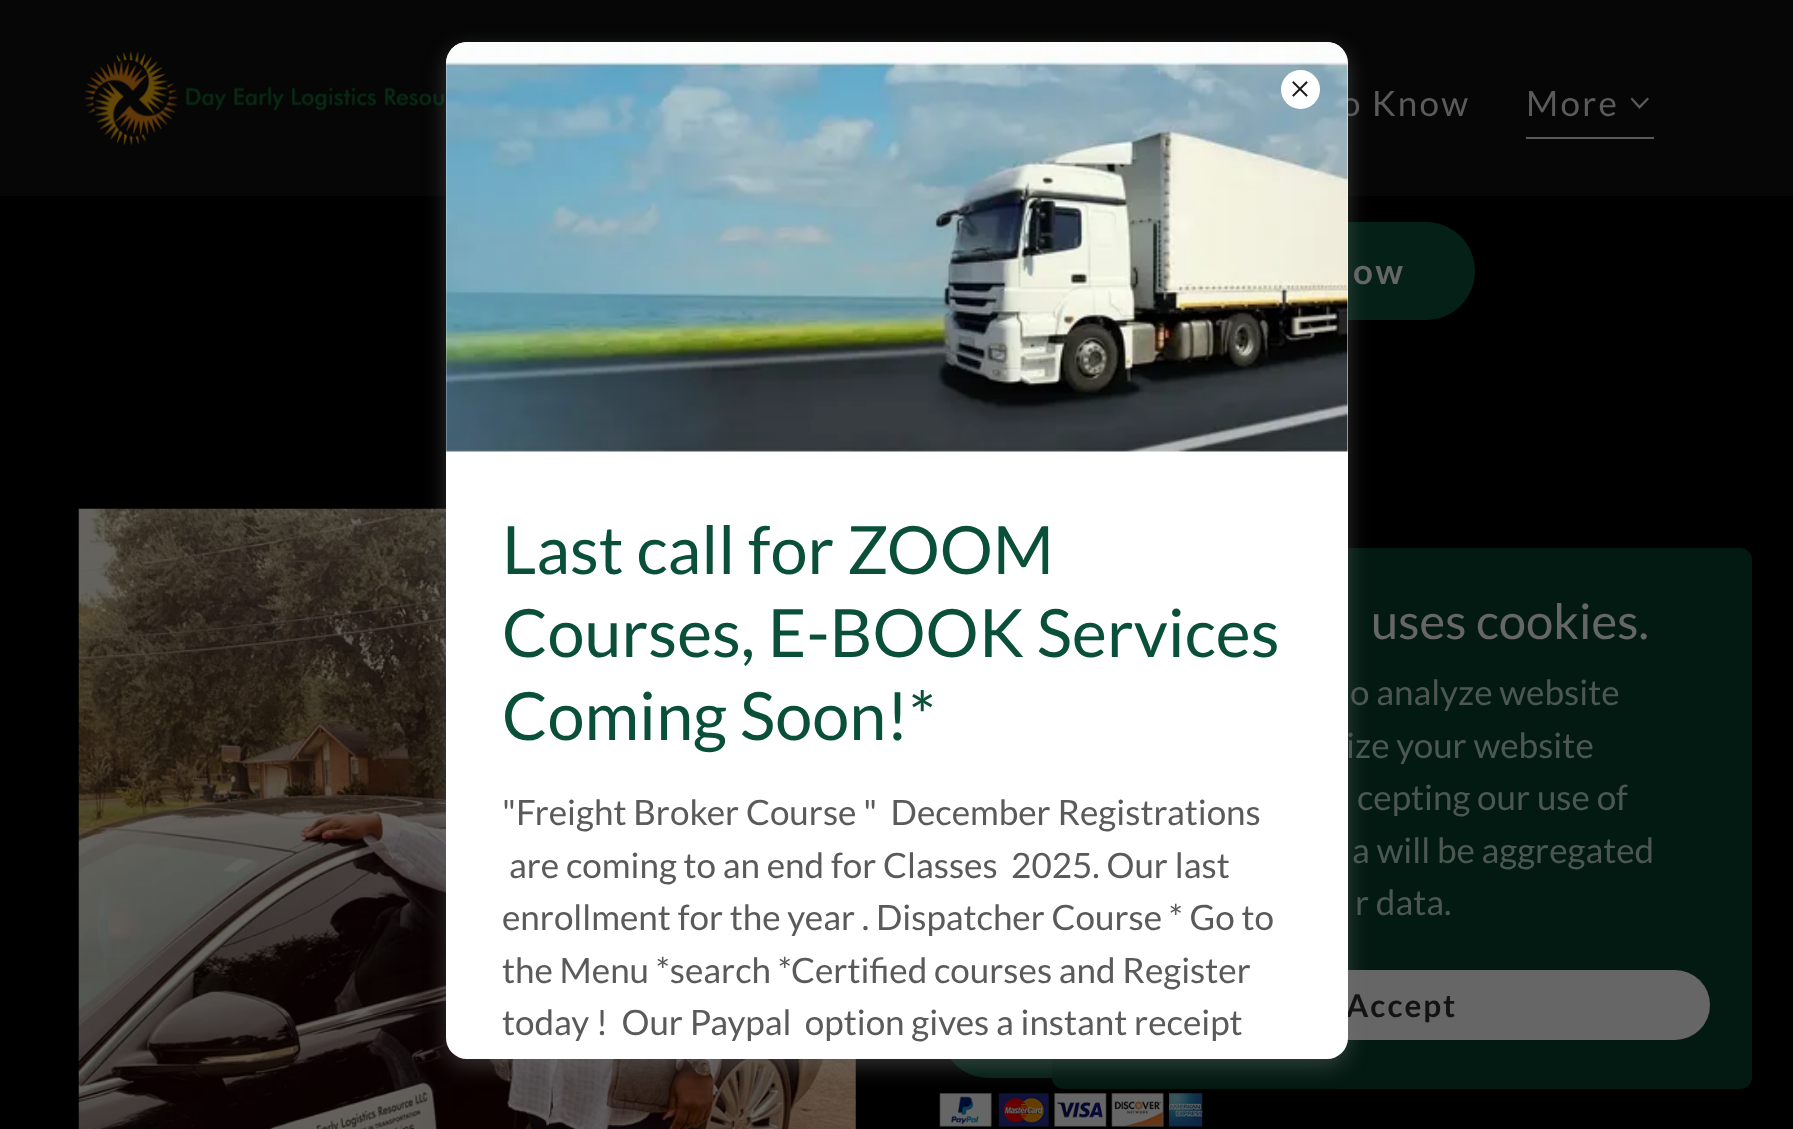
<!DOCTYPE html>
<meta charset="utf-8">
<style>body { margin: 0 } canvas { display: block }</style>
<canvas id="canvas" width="1793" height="1129"></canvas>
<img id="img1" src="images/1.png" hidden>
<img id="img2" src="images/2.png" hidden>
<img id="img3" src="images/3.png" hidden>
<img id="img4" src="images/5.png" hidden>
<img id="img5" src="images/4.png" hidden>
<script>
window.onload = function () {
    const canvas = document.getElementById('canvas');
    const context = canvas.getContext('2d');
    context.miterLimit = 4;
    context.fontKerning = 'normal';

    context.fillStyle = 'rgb(0, 0, 0)';
    context.fillRect(0, 0, 1793, 1129);
    context.fillStyle = 'rgb(6, 6, 6)';
    context.fillRect(0, 0, 1793, 196);
    context.drawImage(document.getElementById('img1'), 84, 50, 361, 96);
    context.fillStyle = 'rgb(90, 90, 90)';
    context.fillRect(1526, 137, 128, 2);
    context.beginPath();
    context.moveTo(1647.5, 97.5);
    context.lineTo(1639.5, 105.5);
    context.lineTo(1632, 97.5);
    context.lineTo(1630.5, 99);
    context.lineTo(1639.5, 109);
    context.lineTo(1649, 99);
    context.closePath();
    context.fill('evenodd');
    context.fillStyle = 'rgb(4, 32, 23)';
    context.beginPath();
    context.roundRect(1073, 222, 402, 98, 49);
    context.fill();
    context.drawImage(document.getElementById('img2'), 78, 508, 778, 621);
    context.beginPath();
    context.roundRect(940, 980, 339, 98, 49);
    context.fill();
    context.drawImage(document.getElementById('img3'), 939, 1093, 264, 34);
    context.fillStyle = 'rgb(3, 26, 19)';
    context.beginPath();
    context.roundRect(1052, 548, 700, 541, 12);
    context.fill();
    context.fillStyle = 'rgb(102, 102, 102)';
    context.beginPath();
    context.roundRect(1094, 970, 616, 70, 35);
    context.fill();
    context.fillStyle = 'rgba(117, 117, 117, 0.4)';
    context.filter = 'blur(10.5px)';
    context.beginPath();
    context.roundRect(446, 49, 902, 1017, 21);
    context.fill();
    context.filter = 'none';
    context.letterSpacing = '2.25px';
    context.font = '35px Lato';
    context.fillStyle = 'rgb(90, 90, 90)';
    context.fillText('o Know', 1341, 116);
    context.fillText('More', 1526, 116);
    context.font = 'bold 35px Lato';
    context.fillStyle = 'rgb(102, 102, 102)';
    context.fillText('ow', 1353, 284);
    context.letterSpacing = '0px';
    context.font = '49px Lato';
    context.fillText('uses cookies.', 1371, 639);
    context.font = '35px Lato';
    context.fillStyle = 'rgb(76, 87, 82)';
    context.fillText('o analyze website', 1350, 705);
    context.fillText('ize your website', 1346, 758);
    context.fillText('cepting our use of', 1357, 810);
    context.fillText('a will be aggregated', 1352, 863);
    context.fillText('r data.', 1355, 915);
    context.letterSpacing = '2px';
    context.font = 'bold 31.5px Lato';
    context.fillStyle = 'rgb(19, 19, 19)';
    context.fillText('Accept', 1346, 1017);
    context.fillStyle = 'rgb(255, 255, 255)';
    context.beginPath();
    context.roundRect(446, 42, 902, 1017, 21);
    context.fill();
    context.drawImage(document.getElementById('img4'), 446, 42, 902, 410);
    context.beginPath();
    context.arc(1300.5, 89.5, 19.5, 0, 2 * Math.PI);
    context.fill();
    context.drawImage(document.getElementById('img5'), 1292, 81, 16, 16);
    context.letterSpacing = '0px';
    context.font = '35px Lato';
    context.fillStyle = 'rgb(90, 90, 90)';
    context.fillText('today !  Our Paypal  option gives a instant receipt', 502, 1035);
    context.fillText('the Menu *search *Certified courses and Register', 502, 983);
    context.fillText('enrollment for the year . Dispatcher Course * Go to', 502, 930);
    context.fillText('are coming to an end for Classes  2025. Our last', 509, 878);
    context.fillText('"Freight Broker Course "  December Registrations', 502, 825);
    context.font = '66.5px Lato';
    context.fillStyle = 'rgb(10, 79, 57)';
    context.fillText('Coming Soon!*', 502, 740);
    context.fillText('Courses, E-BOOK Services', 502, 657);
    context.fillText('Last call for ZOOM', 502, 574);
};
</script>
